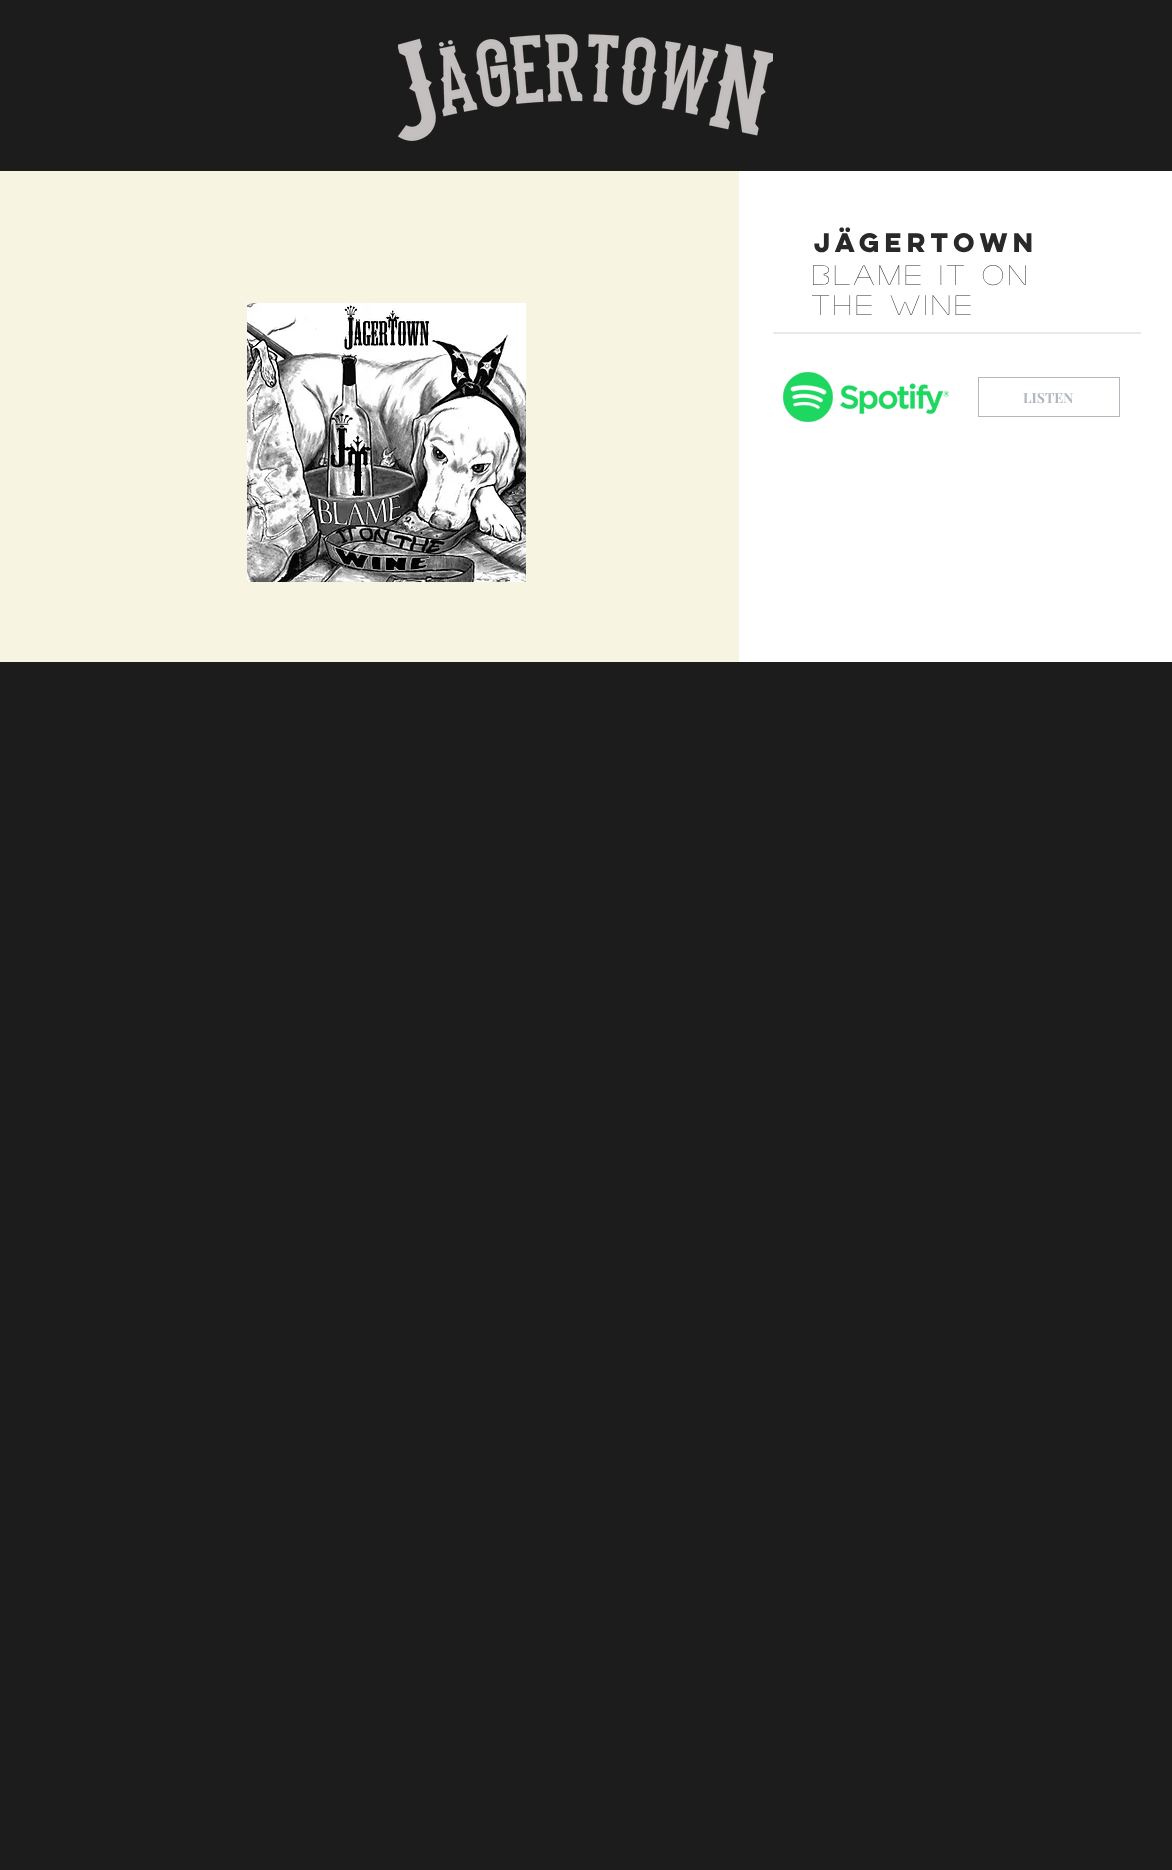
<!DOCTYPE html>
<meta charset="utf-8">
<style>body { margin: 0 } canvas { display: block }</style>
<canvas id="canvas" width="1172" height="1870"></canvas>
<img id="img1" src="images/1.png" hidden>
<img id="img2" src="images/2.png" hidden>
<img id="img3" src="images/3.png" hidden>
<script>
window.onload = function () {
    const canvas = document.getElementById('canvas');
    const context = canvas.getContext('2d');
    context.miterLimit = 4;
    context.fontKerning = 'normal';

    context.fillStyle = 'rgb(28, 28, 28)';
    context.fillRect(0, 0, 1172, 1870);
    context.drawImage(document.getElementById('img1'), 398, 34, 375, 107);
    context.fillStyle = 'rgb(247, 245, 225)';
    context.fillRect(0, 171, 739, 491);
    context.drawImage(document.getElementById('img2'), 247, 303, 279, 279);
    context.fillStyle = 'rgb(255, 255, 255)';
    context.fillRect(739, 171, 433, 491);
    context.fillStyle = 'rgb(232, 234, 236)';
    context.fillRect(773, 332, 368, 2);
    context.drawImage(document.getElementById('img3'), 783, 372, 166, 50);
    context.strokeStyle = 'rgb(177, 184, 191)';
    context.strokeRect(978.5, 377.5, 141, 39);
    context.font = 'bold 24px "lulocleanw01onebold"';
    context.fillStyle = 'rgb(41, 41, 41)';
    context.fillText('Jägertown', 814, 252);
    context.letterSpacing = '4.25px';
    context.font = '28px "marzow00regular"';
    context.fillText('Blame it On', 812, 285);
    context.fillText('The Wine', 812, 315);
    context.letterSpacing = '0px';
    context.font = 'bold 14px Playfair Display';
    context.fillStyle = 'rgb(177, 184, 191)';
    context.fillText('LISTEN', 1023, 403);
};
</script>
